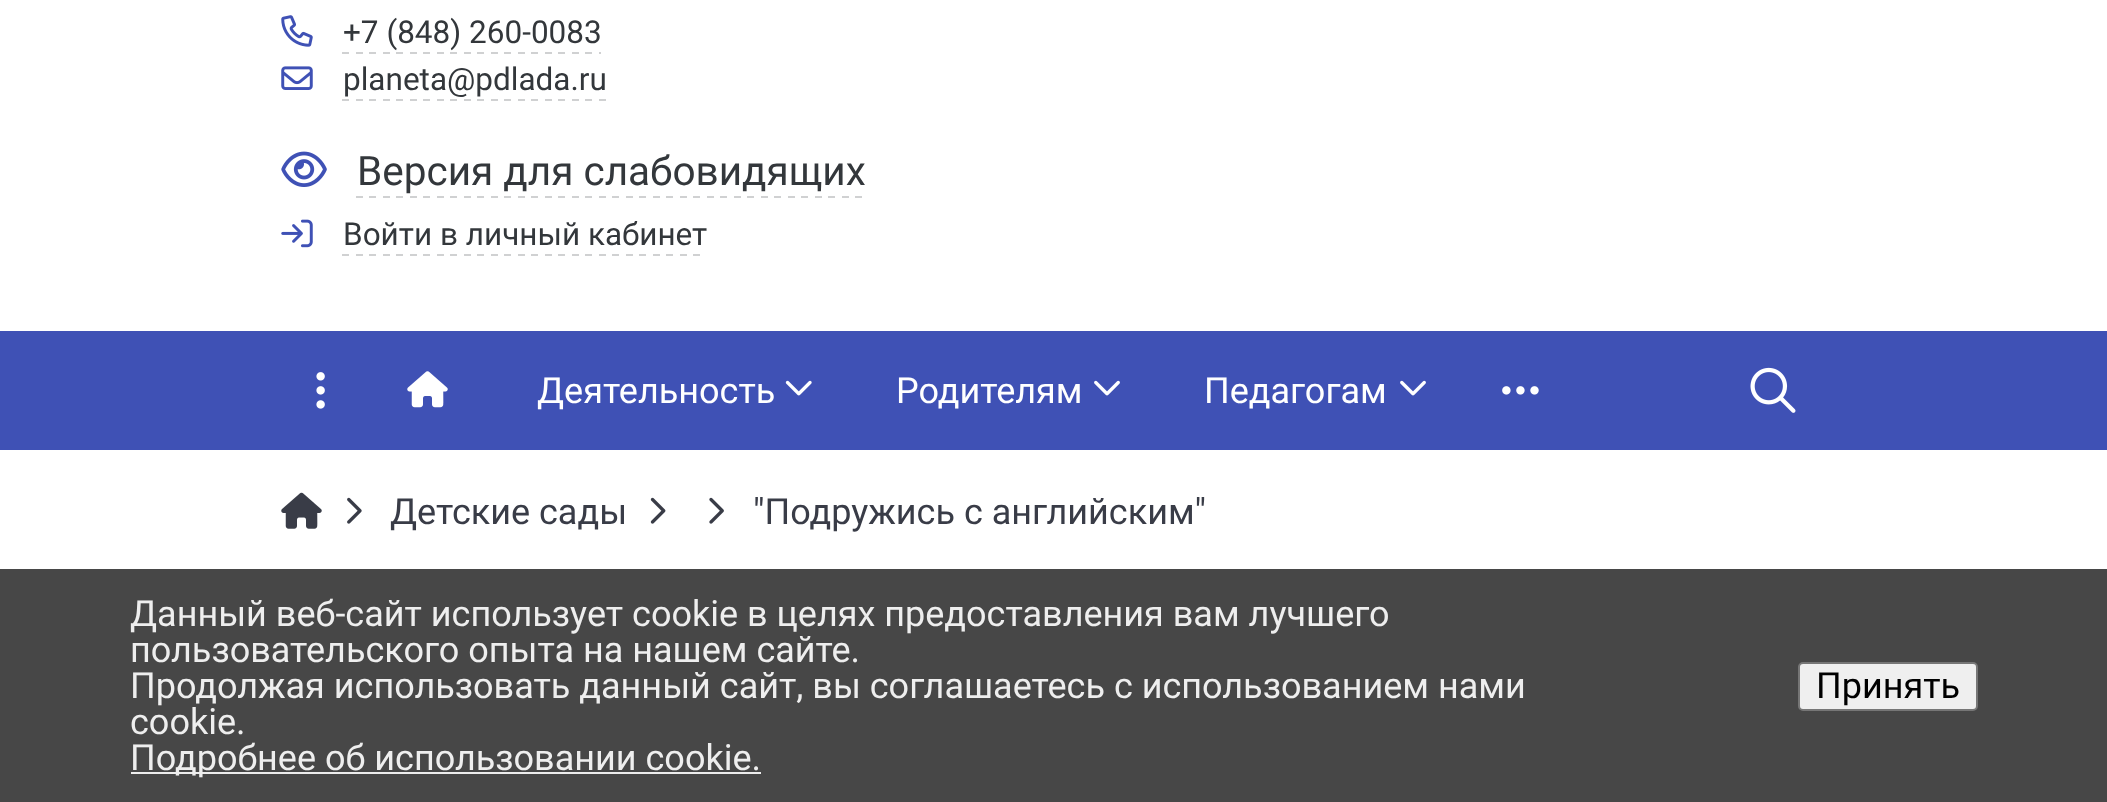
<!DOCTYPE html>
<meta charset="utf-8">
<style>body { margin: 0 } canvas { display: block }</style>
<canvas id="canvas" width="2107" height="802"></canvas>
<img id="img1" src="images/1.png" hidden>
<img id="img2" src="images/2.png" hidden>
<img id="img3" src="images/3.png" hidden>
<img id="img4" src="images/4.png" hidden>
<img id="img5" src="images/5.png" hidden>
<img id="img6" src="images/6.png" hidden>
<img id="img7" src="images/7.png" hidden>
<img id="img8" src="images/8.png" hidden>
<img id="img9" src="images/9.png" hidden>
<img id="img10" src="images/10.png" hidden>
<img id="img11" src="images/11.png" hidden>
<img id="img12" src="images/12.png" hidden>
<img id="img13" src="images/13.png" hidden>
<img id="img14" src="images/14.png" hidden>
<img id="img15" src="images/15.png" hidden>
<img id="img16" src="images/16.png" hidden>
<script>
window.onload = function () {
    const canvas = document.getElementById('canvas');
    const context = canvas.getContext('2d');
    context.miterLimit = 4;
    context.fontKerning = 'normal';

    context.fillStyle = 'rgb(255, 255, 255)';
    context.fillRect(0, 0, 2107, 802);
    context.drawImage(document.getElementById('img1'), 281, 15, 32, 32);
    context.fillStyle = 'rgb(208, 209, 210)';
    context.fillRect(342, 52, 7, 2);
    context.fillRect(356, 52, 7, 2);
    context.fillRect(369, 52, 7, 2);
    context.fillRect(383, 52, 7, 2);
    context.fillRect(396, 52, 7, 2);
    context.fillRect(410, 52, 7, 2);
    context.fillRect(423, 52, 7, 2);
    context.fillRect(437, 52, 7, 2);
    context.fillRect(450, 52, 7, 2);
    context.fillRect(464, 52, 7, 2);
    context.fillRect(477, 52, 7, 2);
    context.fillRect(491, 52, 7, 2);
    context.fillRect(504, 52, 7, 2);
    context.fillRect(518, 52, 7, 2);
    context.fillRect(531, 52, 7, 2);
    context.fillRect(545, 52, 7, 2);
    context.fillRect(558, 52, 7, 2);
    context.fillRect(572, 52, 7, 2);
    context.fillRect(585, 52, 7, 2);
    context.fillRect(599, 52, 2, 2);
    context.drawImage(document.getElementById('img2'), 281, 66, 32, 24);
    context.fillRect(342, 99, 7, 2);
    context.fillRect(356, 99, 7, 2);
    context.fillRect(369, 99, 7, 2);
    context.fillRect(383, 99, 7, 2);
    context.fillRect(396, 99, 7, 2);
    context.fillRect(410, 99, 7, 2);
    context.fillRect(423, 99, 7, 2);
    context.fillRect(437, 99, 7, 2);
    context.fillRect(450, 99, 7, 2);
    context.fillRect(464, 99, 7, 2);
    context.fillRect(477, 99, 7, 2);
    context.fillRect(491, 99, 7, 2);
    context.fillRect(504, 99, 7, 2);
    context.fillRect(518, 99, 7, 2);
    context.fillRect(531, 99, 7, 2);
    context.fillRect(545, 99, 7, 2);
    context.fillRect(558, 99, 7, 2);
    context.fillRect(572, 99, 7, 2);
    context.fillRect(585, 99, 7, 2);
    context.fillRect(599, 99, 7, 2);
    context.drawImage(document.getElementById('img3'), 281, 151, 46, 36);
    context.drawImage(document.getElementById('img4'), 356, 196, 506, 2);
    context.drawImage(document.getElementById('img5'), 281, 219, 32, 29);
    context.drawImage(document.getElementById('img6'), 342, 254, 358, 2);
    context.fillStyle = 'rgb(63, 81, 181)';
    context.fillRect(0, 331, 2107, 119);
    context.drawImage(document.getElementById('img7'), 316, 372, 9, 37);
    context.drawImage(document.getElementById('img8'), 407, 371, 41, 37);
    context.drawImage(document.getElementById('img9'), 785, 380, 27, 16);
    context.drawImage(document.getElementById('img10'), 1094, 380, 26, 16);
    context.drawImage(document.getElementById('img10'), 1400, 380, 26, 16);
    context.drawImage(document.getElementById('img11'), 1502, 386, 37, 9);
    context.drawImage(document.getElementById('img12'), 1750, 367, 46, 46);
    context.drawImage(document.getElementById('img13'), 281, 492, 41, 37);
    context.drawImage(document.getElementById('img14'), 347, 497, 15, 27);
    context.drawImage(document.getElementById('img15'), 650, 497, 16, 27);
    context.drawImage(document.getElementById('img16'), 709, 497, 15, 27);
    context.fillStyle = 'rgb(71, 71, 71)';
    context.fillRect(0, 569, 2107, 233);
    context.fillStyle = 'rgb(238, 238, 238)';
    context.fillRect(131, 772, 630, 2);
    context.fillStyle = 'rgb(239, 239, 239)';
    context.beginPath();
    context.roundRect(1799, 663, 178, 47, 4);
    context.fill();
    context.strokeStyle = 'rgb(118, 118, 118)';
    context.lineWidth = 2;
    context.stroke();
    context.font = '31.5px Roboto';
    context.fillStyle = 'rgb(51, 55, 59)';
    context.fillText('+7 (848) 260-0083', 343, 43);
    context.fillText('planeta@pdlada.ru', 343, 90);
    context.font = '40.5px Roboto';
    context.fillText('Версия для слабовидящих', 357, 185);
    context.font = '31.5px Roboto';
    context.fillText('Войти в личный кабинет', 343, 245);
    context.font = '36px Roboto';
    context.fillStyle = 'rgb(255, 255, 255)';
    context.fillText('Деятельность', 537, 403);
    context.fillText('Родителям', 896, 403);
    context.fillText('Педагогам', 1204, 403);
    context.fillStyle = 'rgb(57, 60, 71)';
    context.fillText('Детские сады', 390, 524);
    context.fillText('"Подружись с английским"', 753, 524);
    context.fillStyle = 'rgb(238, 238, 238)';
    context.fillText('Данный веб-сайт использует cookie в целях предоставления вам лучшего', 130, 626);
    context.fillText('пользовательского опыта на нашем сайте.', 130, 662);
    context.fillText('Продолжая использовать данный сайт, вы соглашаетесь с использованием нами', 130, 698);
    context.fillText('cookie.', 130, 734);
    context.fillText('Подробнее об использовании cookie.', 130, 770);
    context.fillStyle = 'rgb(0, 0, 0)';
    context.fillText('Принять', 1816, 698);
};
</script>
